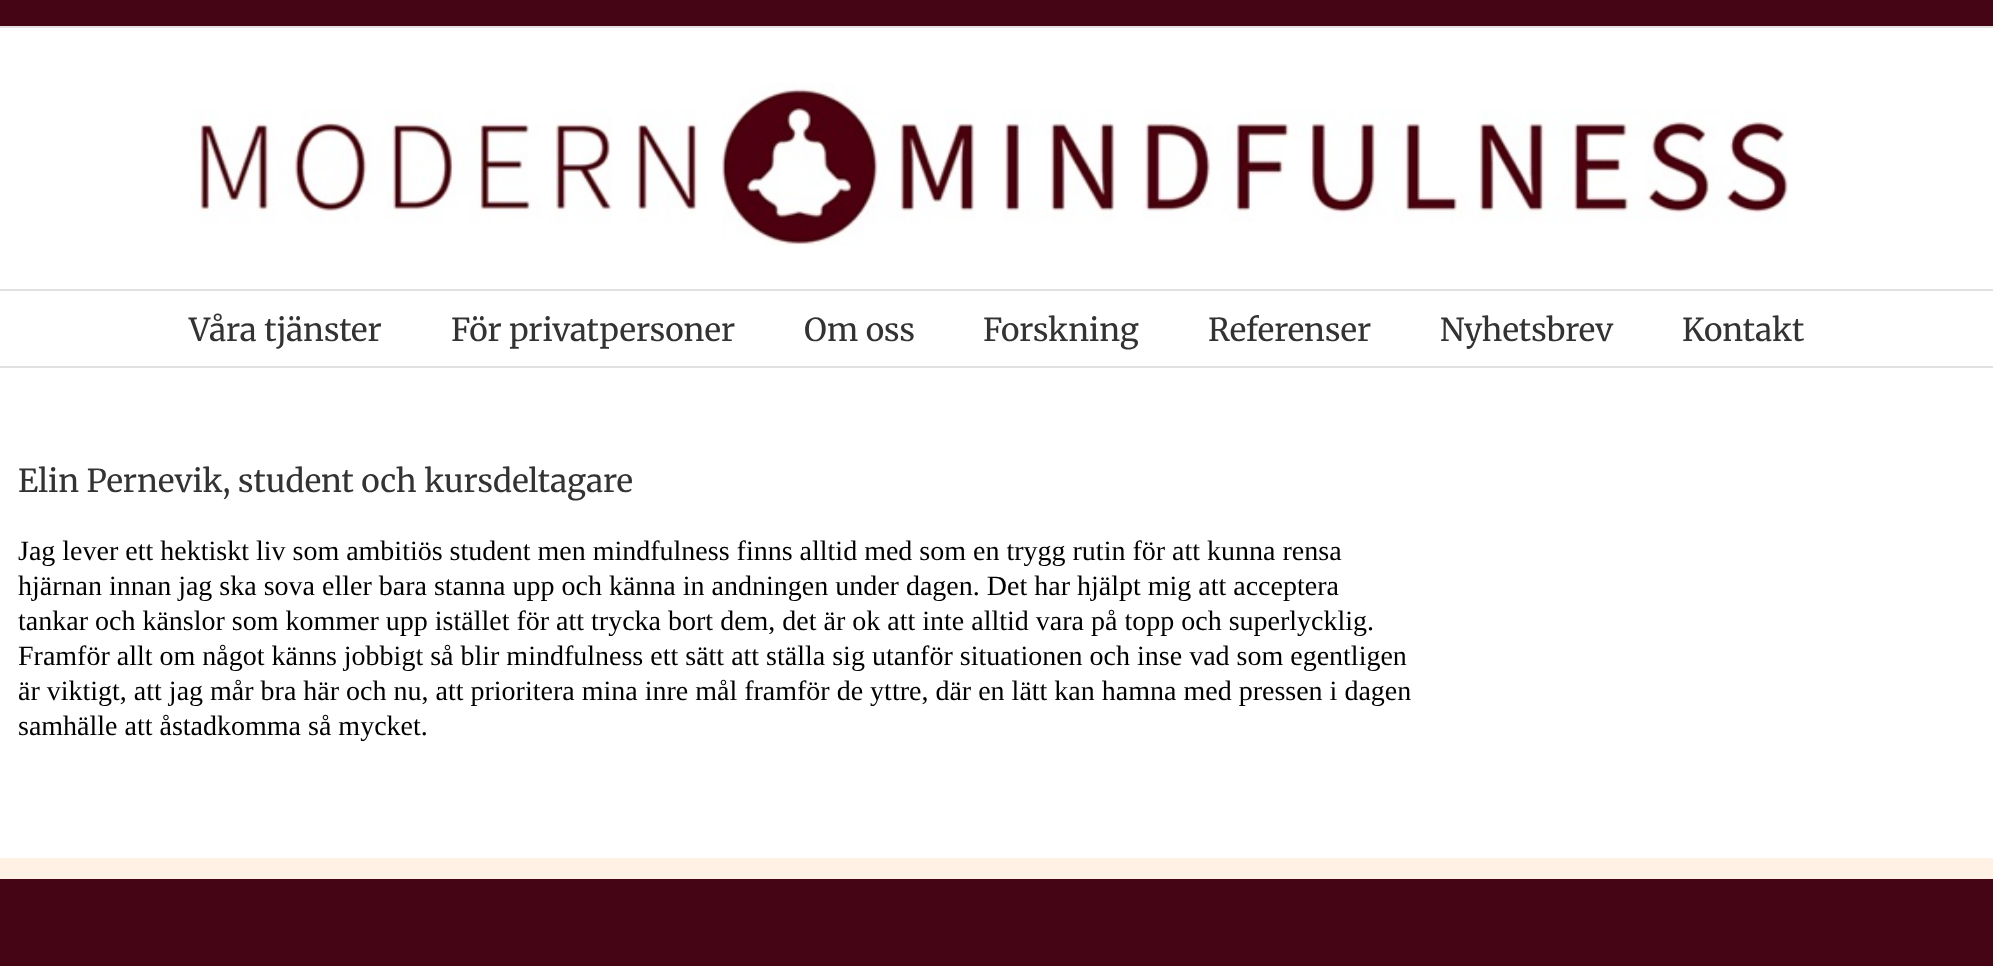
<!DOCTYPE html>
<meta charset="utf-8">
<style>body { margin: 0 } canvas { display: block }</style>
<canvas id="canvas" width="1993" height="966"></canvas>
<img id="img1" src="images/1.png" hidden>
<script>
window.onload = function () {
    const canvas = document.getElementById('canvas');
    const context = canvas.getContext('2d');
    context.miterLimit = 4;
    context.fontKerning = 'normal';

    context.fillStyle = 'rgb(255, 255, 255)';
    context.fillRect(0, 0, 1993, 966);
    context.fillStyle = 'rgb(69, 5, 21)';
    context.fillRect(0, 0, 1993, 26);
    context.fillStyle = 'rgb(225, 225, 225)';
    context.fillRect(0, 26, 1993, 2);
    context.fillRect(0, 289, 1993, 2);
    context.drawImage(document.getElementById('img1'), 191, 83, 1597, 163);
    context.fillRect(0, 366, 1993, 2);
    context.fillStyle = 'rgb(69, 5, 21)';
    context.fillRect(0, 879, 1993, 87);
    context.fillStyle = 'rgb(255, 242, 229)';
    context.fillRect(0, 858, 1993, 21);
    context.font = '31.5px Merriweather';
    context.fillStyle = 'rgb(51, 51, 51)';
    context.fillText('Våra tjänster', 189, 341);
    context.fillText('För privatpersoner', 451, 341);
    context.fillText('Om oss', 804, 341);
    context.fillText('Forskning', 983, 341);
    context.fillText('Referenser', 1208, 341);
    context.fillText('Nyhetsbrev', 1440, 341);
    context.fillText('Kontakt', 1682, 341);
    context.fillText('Elin Pernevik, student och kursdeltagare', 18, 492);
    context.font = '28px Liberation Serif';
    context.fillStyle = 'rgb(0, 0, 0)';
    context.fillText('Jag lever ett hektiskt liv som ambitiös student men mindfulness finns alltid med som en trygg rutin för att kunna rensa', 18, 560);
    context.fillText('hjärnan innan jag ska sova eller bara stanna upp och känna in andningen under dagen. Det har hjälpt mig att acceptera', 18, 595);
    context.fillText('tankar och känslor som kommer upp istället för att trycka bort dem, det är ok att inte alltid vara på topp och superlycklig.', 18, 630);
    context.fillText('Framför allt om något känns jobbigt så blir mindfulness ett sätt att ställa sig utanför situationen och inse vad som egentligen', 18, 665);
    context.fillText('är viktigt, att jag mår bra här och nu, att prioritera mina inre mål framför de yttre, där en lätt kan hamna med pressen i dagen', 18, 700);
    context.fillText('samhälle att åstadkomma så mycket.', 18, 735);
};
</script>
